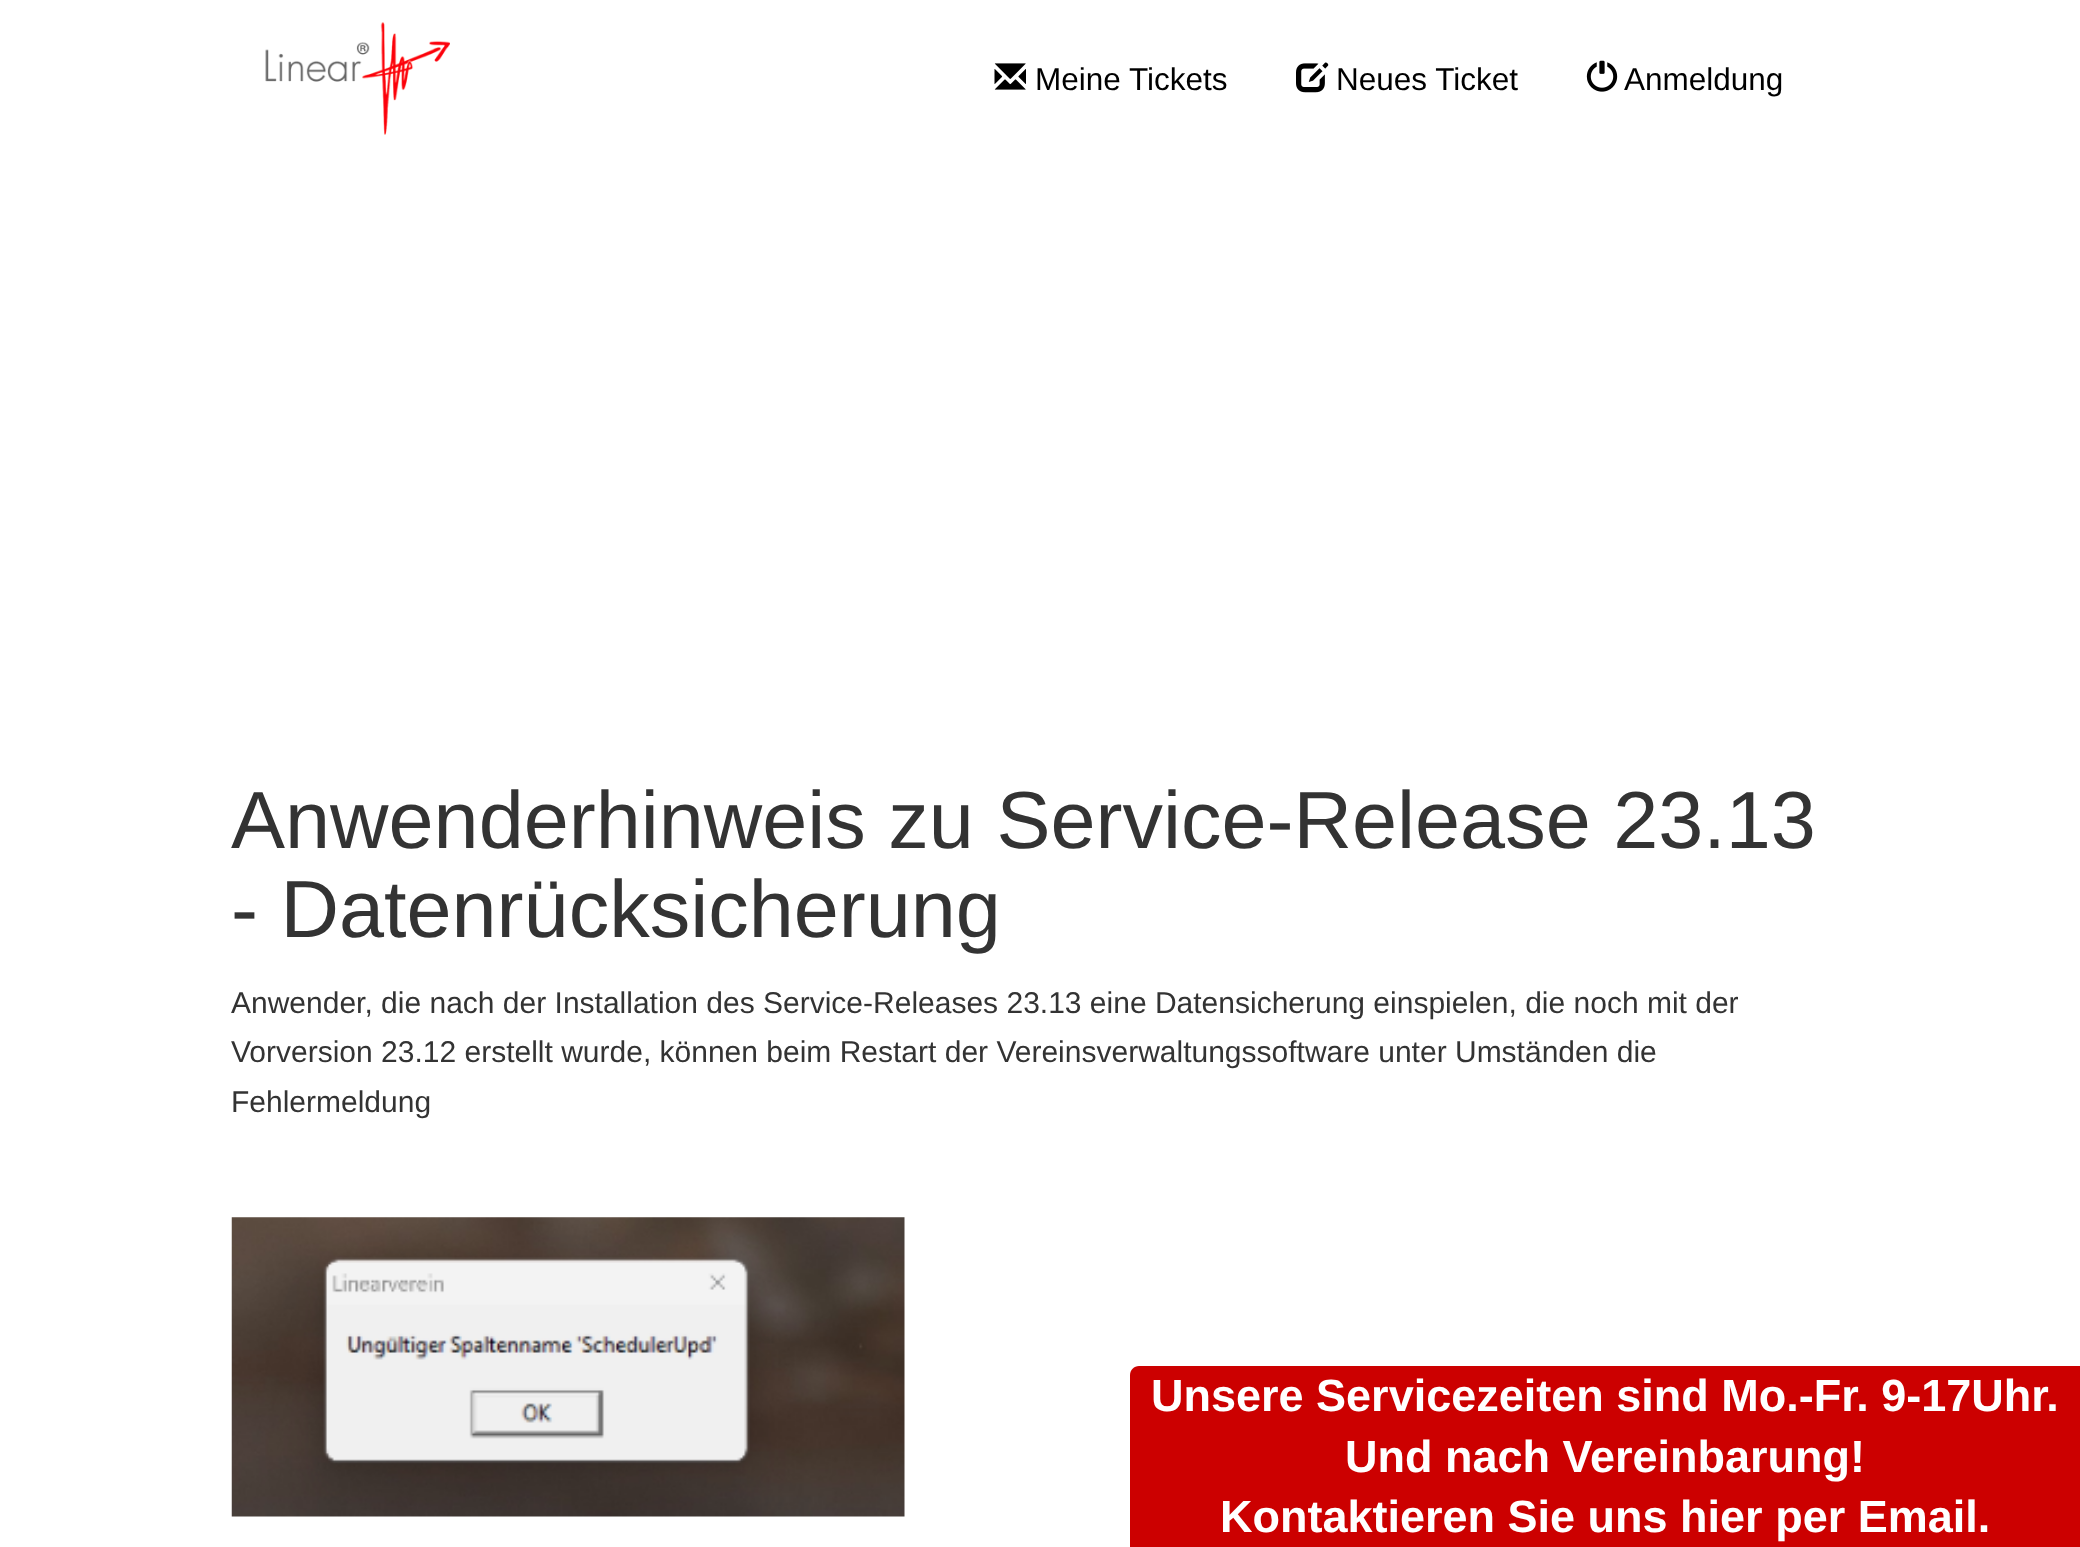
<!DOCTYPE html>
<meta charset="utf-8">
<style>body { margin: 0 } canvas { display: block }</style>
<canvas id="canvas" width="2080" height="1547"></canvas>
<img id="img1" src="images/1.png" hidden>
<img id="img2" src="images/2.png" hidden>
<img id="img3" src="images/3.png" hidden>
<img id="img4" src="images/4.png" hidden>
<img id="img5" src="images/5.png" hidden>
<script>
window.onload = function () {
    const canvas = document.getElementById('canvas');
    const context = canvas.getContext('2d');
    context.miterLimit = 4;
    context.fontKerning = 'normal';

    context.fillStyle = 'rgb(255, 255, 255)';
    context.fillRect(0, 0, 2080, 1547);
    context.drawImage(document.getElementById('img1'), 265, 22, 185, 113);
    context.drawImage(document.getElementById('img2'), 994, 63, 32, 27);
    context.drawImage(document.getElementById('img3'), 1296, 62, 33, 31);
    context.drawImage(document.getElementById('img4'), 1586, 60, 32, 32);
    context.drawImage(document.getElementById('img5'), 231, 1217, 674, 300);
    context.fillStyle = 'rgb(204, 0, 0)';
    context.beginPath();
    context.moveTo(1139, 1366);
    context.lineTo(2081, 1366);
    context.lineTo(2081, 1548);
    context.lineTo(1130, 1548);
    context.lineTo(1130, 1375);
    context.bezierCurveTo(1130, 1370, 1134, 1366, 1139, 1366);
    context.closePath();
    context.fill();
    context.font = '31.5px Liberation Sans';
    context.fillStyle = 'rgb(0, 0, 0)';
    context.fillText('Meine Tickets', 1035, 90);
    context.fillText('Neues Ticket', 1336, 90);
    context.fillText('Anmeldung', 1624, 90);
    context.font = '81px Liberation Sans';
    context.fillStyle = 'rgb(51, 51, 51)';
    context.fillText('Anwenderhinweis zu Service-Release 23.13', 231, 848);
    context.fillText('- Datenrücksicherung', 231, 937);
    context.font = '30px Liberation Sans';
    context.fillText('Anwender, die nach der Installation des Service-Releases 23.13 eine Datensicherung einspielen, die noch mit der', 231, 1013);
    context.fillText('Vorversion 23.12 erstellt wurde, können beim Restart der Vereinsverwaltungssoftware unter Umständen die', 231, 1062);
    context.fillText('Fehlermeldung', 231, 1112);
    context.font = 'bold 45px Liberation Sans';
    context.fillStyle = 'rgb(255, 255, 255)';
    context.fillText('Unsere Servicezeiten sind Mo.-Fr. 9-17Uhr.', 1151, 1411);
    context.fillText('Und nach Vereinbarung!', 1345, 1472);
    context.fillText('Kontaktieren Sie uns hier per Email.', 1220, 1532);
};
</script>
